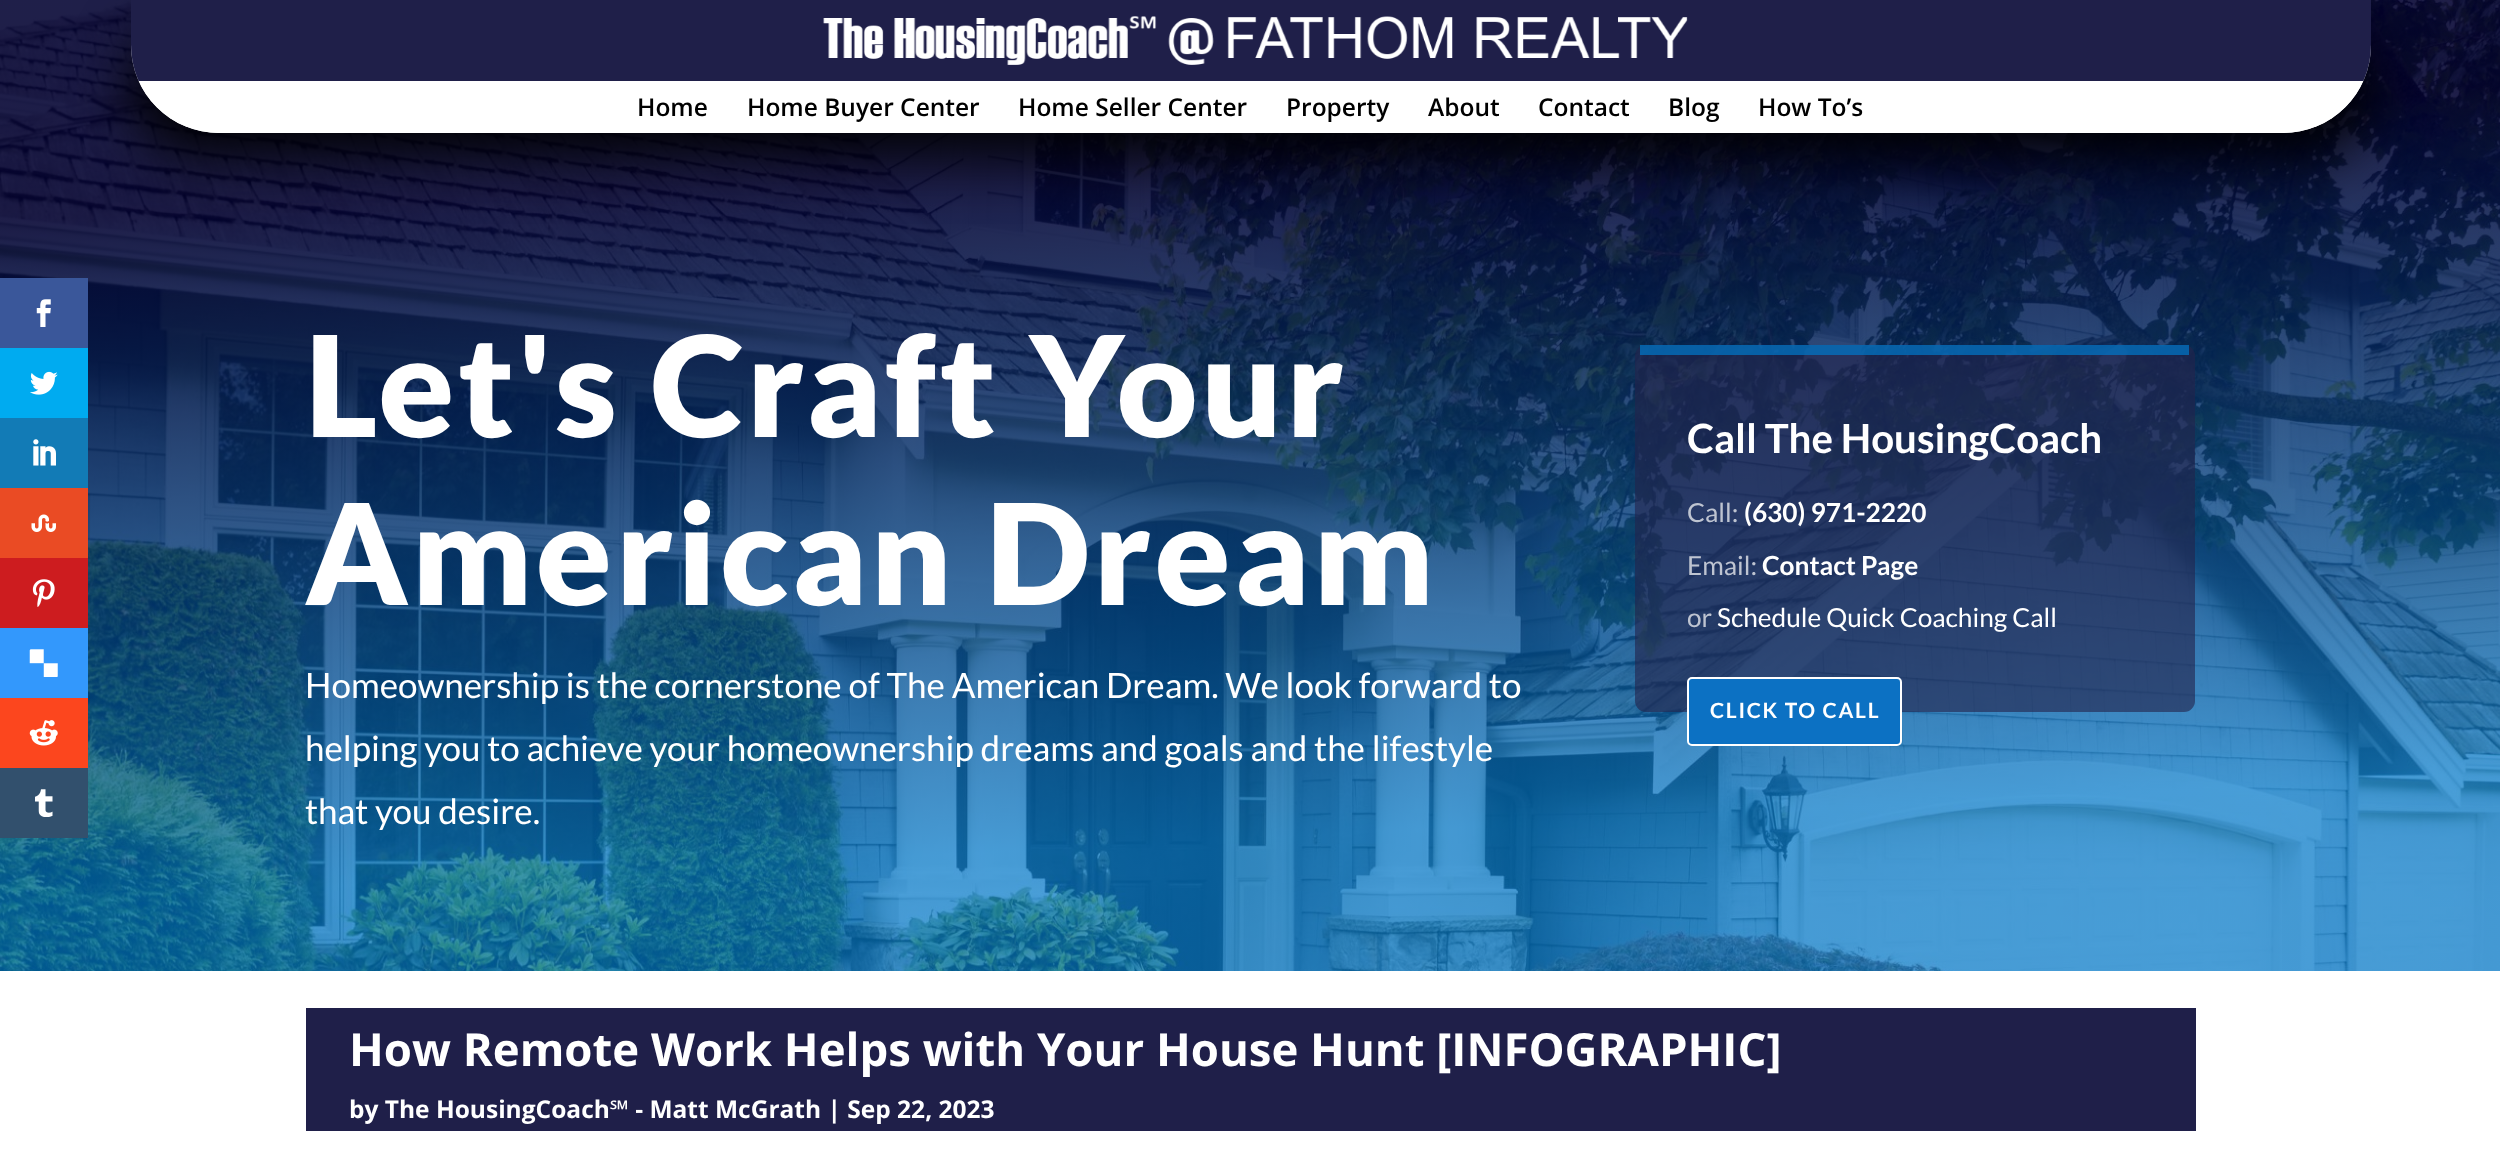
<!DOCTYPE html>
<meta charset="utf-8">
<style>body { margin: 0 } canvas { display: block }</style>
<canvas id="canvas" width="2500" height="1170"></canvas>
<img id="img1" src="images/10.png" hidden>
<img id="img2" src="images/1.png" hidden>
<img id="img3" src="images/2.png" hidden>
<img id="img4" src="images/3.png" hidden>
<img id="img5" src="images/4.png" hidden>
<img id="img6" src="images/5.png" hidden>
<img id="img7" src="images/6.png" hidden>
<img id="img8" src="images/7.png" hidden>
<img id="img9" src="images/8.png" hidden>
<img id="img10" src="images/9.png" hidden>
<script>
window.onload = function () {
    const canvas = document.getElementById('canvas');
    const context = canvas.getContext('2d');
    context.miterLimit = 4;
    context.fontKerning = 'normal';

    context.fillStyle = 'rgb(255, 255, 255)';
    context.fillRect(0, 0, 2500, 1170);
    context.drawImage(document.getElementById('img1'), 0, 0, 2500, 971);
    context.fillStyle = 'rgb(58, 87, 154)';
    context.fillRect(0, 278, 88, 70);
    context.drawImage(document.getElementById('img2'), 36, 299, 15, 28);
    context.fillStyle = 'rgb(0, 171, 240)';
    context.fillRect(0, 348, 88, 70);
    context.drawImage(document.getElementById('img3'), 30, 371, 28, 24);
    context.fillStyle = 'rgb(18, 123, 182)';
    context.fillRect(0, 418, 88, 70);
    context.drawImage(document.getElementById('img4'), 33, 439, 23, 27);
    context.fillStyle = 'rgb(234, 75, 36)';
    context.fillRect(0, 488, 88, 70);
    context.drawImage(document.getElementById('img5'), 31, 514, 25, 18);
    context.fillStyle = 'rgb(205, 28, 31)';
    context.fillRect(0, 558, 88, 70);
    context.drawImage(document.getElementById('img6'), 32, 579, 23, 28);
    context.fillStyle = 'rgb(51, 152, 252)';
    context.fillRect(0, 628, 88, 70);
    context.drawImage(document.getElementById('img7'), 29, 649, 29, 28);
    context.fillStyle = 'rgb(252, 70, 30)';
    context.fillRect(0, 698, 88, 70);
    context.drawImage(document.getElementById('img8'), 29, 720, 29, 26);
    context.fillStyle = 'rgb(50, 80, 109)';
    context.fillRect(0, 768, 88, 70);
    context.drawImage(document.getElementById('img9'), 35, 789, 18, 28);
    context.fillStyle = 'rgb(0, 0, 0)';
    context.filter = 'blur(29px)';
    context.beginPath();
    context.roundRect(131, 21, 2240, 133, 88);
    context.fill();
    context.filter = 'none';
    context.fillStyle = 'rgb(255, 255, 255)';
    context.beginPath();
    context.roundRect(131, 0, 2240, 133, [0, 0, 88, 88]);
    context.fill();
    context.save();
    context.beginPath();
    context.roundRect(131, 0, 2240, 133, [0, 0, 88, 88]);
    context.clip();
    context.fillStyle = 'rgba(0, 0, 48, 0.88)';
    context.fillRect(131, 0, 2240, 81);
    context.restore();
    context.drawImage(document.getElementById('img10'), 823, 16, 865, 49);
    context.save();
    context.beginPath();
    context.roundRect(131, 0, 2240, 133, [0, 0, 88, 88]);
    context.clip();
    context.fillRect(138, 81, 2226, 52);
    context.restore();
    context.fillStyle = 'rgba(36, 36, 76, 0.62)';
    context.beginPath();
    context.roundRect(1635, 345, 560, 367, 11);
    context.fill();
    context.fillStyle = 'rgba(0, 120, 201, 0.71)';
    context.fillRect(1640, 345, 549, 10);
    context.fillStyle = 'rgb(12, 113, 195)';
    context.beginPath();
    context.roundRect(1688, 678, 213, 67, 4);
    context.fill();
    context.strokeStyle = 'rgb(255, 255, 255)';
    context.lineWidth = 2;
    context.stroke();
    context.fillStyle = 'rgb(31, 31, 73)';
    context.fillRect(306, 1008, 1890, 123);
    context.font = '600 24.5px Open Sans';
    context.fillStyle = 'rgb(0, 0, 0)';
    context.fillText('Home', 637, 116);
    context.fillText('Home Buyer Center', 747, 116);
    context.fillText('Home Seller Center', 1018, 116);
    context.fillText('Property', 1286, 116);
    context.fillText('About', 1428, 116);
    context.fillText('Contact', 1538, 116);
    context.fillText('Blog', 1668, 116);
    context.fillText('How To’s', 1758, 116);
    context.letterSpacing = '3.5px';
    context.font = '900 140px Lato';
    context.fillStyle = 'rgb(255, 255, 255)';
    context.fillText('Let\'s Craft Your', 305, 437);
    context.fillText('American Dream', 305, 605);
    context.letterSpacing = '0px';
    context.font = '35px Lato';
    context.fillText('Homeownership is the cornerstone of The American Dream. We look forward to', 305, 698);
    context.fillText('helping you to achieve your homeownership dreams and goals and the lifestyle', 305, 761);
    context.fillText('that you desire.', 305, 824);
    context.font = 'bold 40.25px Lato';
    context.fillText('Call The HousingCoach', 1687, 453);
    context.font = '26.25px Lato';
    context.fillStyle = 'rgb(190, 196, 209)';
    context.fillText('Call:', 1687, 522);
    context.font = 'bold 26.25px Lato';
    context.fillStyle = 'rgb(255, 255, 255)';
    context.fillText('(630) 971-2220', 1744, 522);
    context.font = '26.25px Lato';
    context.fillStyle = 'rgb(190, 196, 209)';
    context.fillText('Email:', 1687, 575);
    context.font = 'bold 26.25px Lato';
    context.fillStyle = 'rgb(255, 255, 255)';
    context.fillText('Contact Page', 1762, 575);
    context.font = '26.25px Lato';
    context.fillStyle = 'rgb(190, 196, 209)';
    context.fillText('or', 1687, 627);
    context.fillStyle = 'rgb(255, 255, 255)';
    context.fillText('Schedule Quick Coaching Call', 1717, 627);
    context.letterSpacing = '1.75px';
    context.font = 'bold 21px Lato';
    context.fillText('CLICK TO CALL', 1710, 718);
    context.letterSpacing = '0px';
    context.font = 'bold 45.5px Open Sans';
    context.fillText('How Remote Work Helps with Your House Hunt [INFOGRAPHIC]', 349, 1066);
    context.font = 'bold 24.5px Open Sans';
    context.fillText('by The HousingCoach℠ - Matt McGrath | Sep 22, 2023', 349, 1118);
};
</script>
